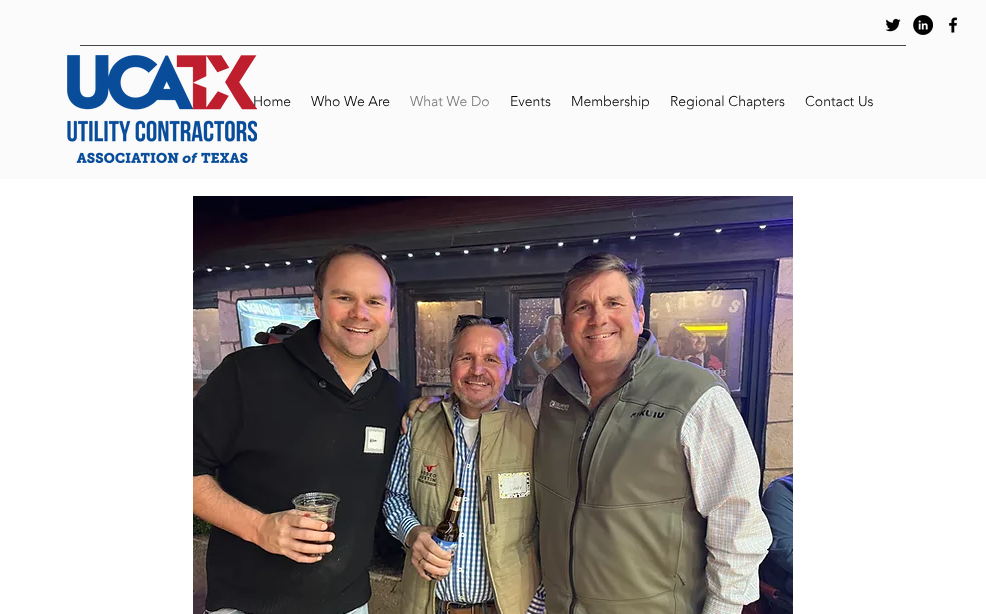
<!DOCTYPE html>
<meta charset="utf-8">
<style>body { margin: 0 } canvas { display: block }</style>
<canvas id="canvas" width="986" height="614"></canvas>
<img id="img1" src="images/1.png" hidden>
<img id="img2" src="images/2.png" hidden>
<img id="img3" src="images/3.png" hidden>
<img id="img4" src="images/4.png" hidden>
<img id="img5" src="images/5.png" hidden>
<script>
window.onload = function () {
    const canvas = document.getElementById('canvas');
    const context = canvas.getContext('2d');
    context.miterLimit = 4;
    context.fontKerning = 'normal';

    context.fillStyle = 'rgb(255, 255, 255)';
    context.fillRect(0, 0, 986, 614);
    context.fillStyle = 'rgb(251, 251, 251)';
    context.fillRect(0, 0, 986, 179);
    context.drawImage(document.getElementById('img1'), 885, 18, 16, 14);
    context.drawImage(document.getElementById('img2'), 913, 15, 20, 20);
    context.drawImage(document.getElementById('img3'), 949, 17, 9, 16);
    context.fillStyle = 'rgb(70, 70, 70)';
    context.fillRect(80, 45, 826, 1);
    context.drawImage(document.getElementById('img4'), 67, 55, 190, 108);
    context.drawImage(document.getElementById('img5'), 193, 196, 600, 418);
    context.font = '300 14px "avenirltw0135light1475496"';
    context.fillStyle = 'rgb(0, 0, 0)';
    context.fillText('Home', 253, 106);
    context.fillText('Who We Are', 311, 106);
    context.fillStyle = 'rgb(118, 118, 118)';
    context.fillText('What We Do', 410, 106);
    context.fillStyle = 'rgb(0, 0, 0)';
    context.fillText('Events', 510, 106);
    context.fillText('Membership', 571, 106);
    context.fillText('Regional Chapters', 670, 106);
    context.fillText('Contact Us', 805, 106);
};
</script>
